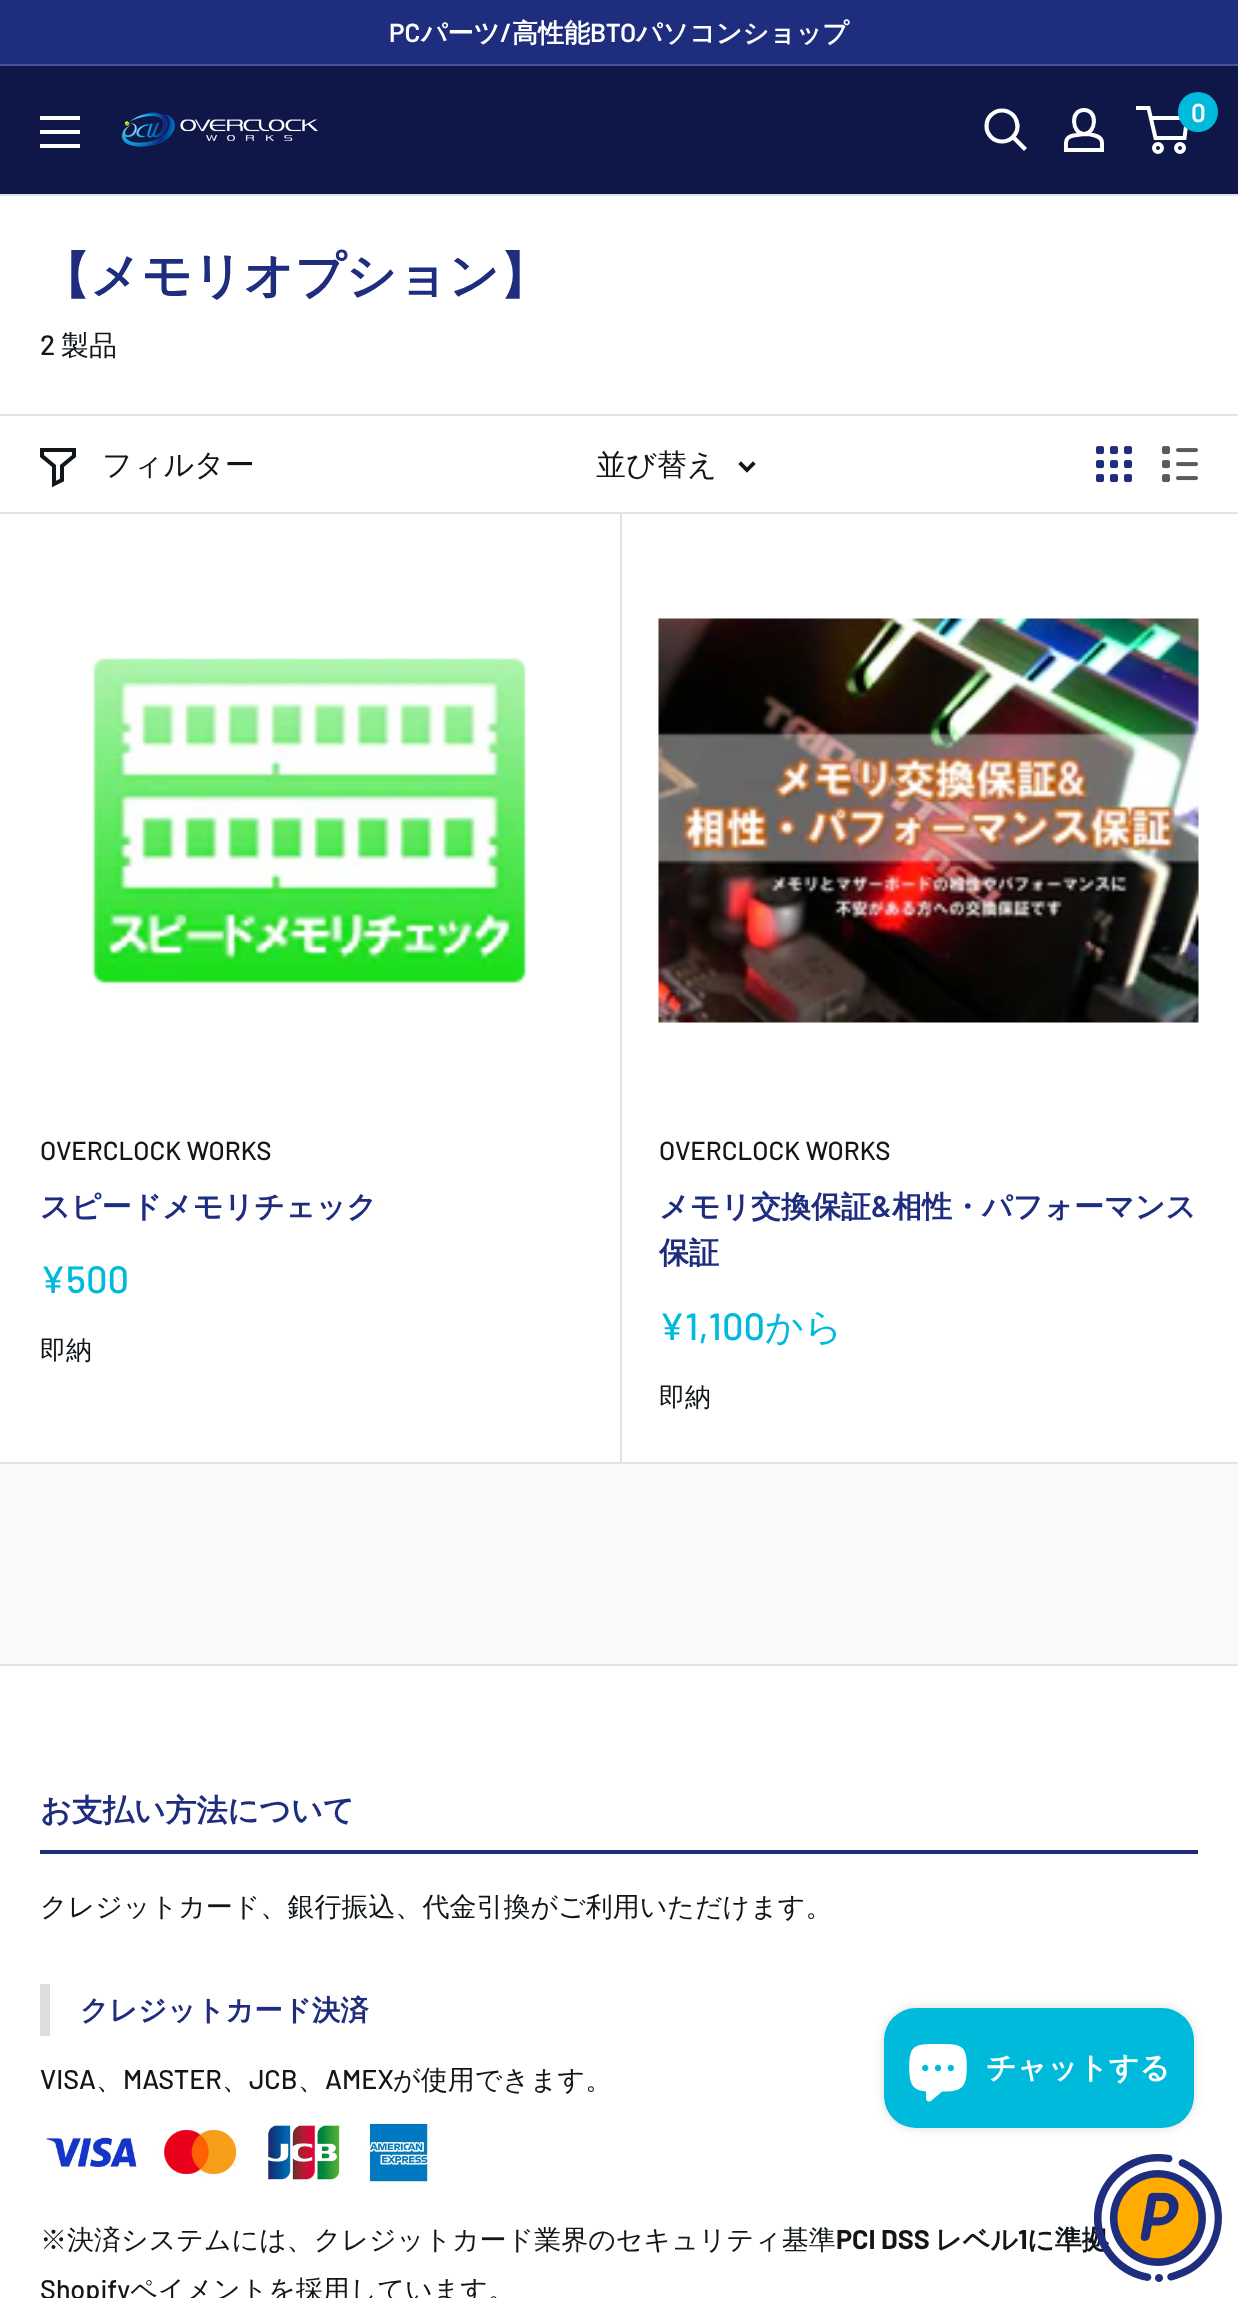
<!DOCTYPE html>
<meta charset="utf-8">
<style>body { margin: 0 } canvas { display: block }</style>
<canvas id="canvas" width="1238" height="2298"></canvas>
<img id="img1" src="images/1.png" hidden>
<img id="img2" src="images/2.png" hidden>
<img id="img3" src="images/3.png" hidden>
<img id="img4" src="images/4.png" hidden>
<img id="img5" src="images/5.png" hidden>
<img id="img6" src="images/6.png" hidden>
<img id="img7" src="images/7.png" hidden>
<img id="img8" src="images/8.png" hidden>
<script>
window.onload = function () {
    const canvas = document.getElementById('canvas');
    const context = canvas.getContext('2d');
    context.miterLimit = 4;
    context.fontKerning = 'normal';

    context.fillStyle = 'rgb(249, 249, 249)';
    context.fillRect(0, 0, 1238, 2298);
    context.fillStyle = 'rgb(30, 45, 125)';
    context.fillRect(0, 0, 1238, 64);
    context.fillStyle = 'rgb(70, 84, 159)';
    context.fillRect(0, 64, 1238, 2);
    context.fillStyle = 'rgb(14, 23, 72)';
    context.fillRect(0, 66, 1238, 128);
    context.fillStyle = 'rgb(255, 255, 255)';
    context.beginPath();
    context.moveTo(40, 144);
    context.lineTo(80, 144);
    context.lineTo(80, 148);
    context.lineTo(40, 148);
    context.closePath();
    context.moveTo(40, 116);
    context.lineTo(80, 116);
    context.lineTo(80, 120);
    context.lineTo(40, 120);
    context.closePath();
    context.moveTo(40, 130);
    context.lineTo(80, 130);
    context.lineTo(80, 134);
    context.lineTo(40, 134);
    context.closePath();
    context.fill('evenodd');
    context.drawImage(document.getElementById('img1'), 121, 112, 198, 35);
    context.beginPath();
    context.moveTo(1024, 148);
    context.lineTo(1013.5, 137.5);
    context.strokeStyle = 'rgb(255, 255, 255)';
    context.lineWidth = 4.2;
    context.lineCap = 'square';
    context.stroke();
    context.beginPath();
    context.arc(1002, 126, 15.5, 0, 2 * Math.PI);
    context.stroke();
    context.beginPath();
    context.moveTo(1084, 134);
    context.bezierCurveTo(1088, 134, 1091.5, 134.5, 1095, 135.5);
    context.bezierCurveTo(1103.5, 138, 1102, 142.5, 1102, 150);
    context.lineTo(1066, 150);
    context.bezierCurveTo(1066, 142, 1064.5, 137.5, 1073.5, 135.5);
    context.closePath();
    context.moveTo(1084, 134);
    context.bezierCurveTo(1072, 134, 1069.5, 110, 1084, 110);
    context.bezierCurveTo(1098.5, 110, 1096, 134, 1084, 134);
    context.closePath();
    context.lineWidth = 4;
    context.lineCap = 'butt';
    context.stroke();
    context.beginPath();
    context.arc(1158, 148, 4, 0, 2 * Math.PI);
    context.stroke();
    context.beginPath();
    context.arc(1180, 148, 4, 0, 2 * Math.PI);
    context.stroke();
    context.beginPath();
    context.moveTo(1150.5, 118);
    context.lineTo(1187, 118);
    context.lineTo(1184.5, 138);
    context.lineTo(1155.5, 138);
    context.lineTo(1148.5, 108);
    context.lineTo(1136, 108);
    context.stroke();
    context.fillStyle = 'rgb(0, 186, 219)';
    context.beginPath();
    context.arc(1198, 112, 20, 0, 2 * Math.PI);
    context.fill();
    context.fillStyle = 'rgb(255, 255, 255)';
    context.fillRect(0, 196, 1238, 1266);
    context.fillStyle = 'rgb(225, 227, 228)';
    context.fillRect(0, 194, 1238, 2);
    context.fillRect(0, 1462, 1238, 2);
    context.fillRect(0, 414, 1238, 2);
    context.fillRect(620, 512, 2, 950);
    context.fillRect(0, 512, 1238, 2);
    context.beginPath();
    context.moveTo(74, 456);
    context.lineTo(62, 466);
    context.lineTo(62, 480);
    context.lineTo(54, 484);
    context.lineTo(54, 466);
    context.lineTo(42, 456);
    context.lineTo(42, 450);
    context.lineTo(74, 450);
    context.closePath();
    context.strokeStyle = 'rgb(16, 22, 25)';
    context.lineCap = 'square';
    context.stroke();
    context.beginPath();
    context.moveTo(753, 464);
    context.lineTo(747, 470);
    context.lineTo(741, 464);
    context.lineWidth = 3.8;
    context.stroke();
    context.drawImage(document.getElementById('img2'), 1096, 446, 36, 37);
    context.drawImage(document.getElementById('img3'), 1162, 446, 36, 37);
    context.drawImage(document.getElementById('img4'), 92, 657, 436, 328);
    context.drawImage(document.getElementById('img5'), 658, 618, 541, 405);
    context.fillStyle = 'rgb(255, 255, 255)';
    context.fillRect(0, 1666, 1238, 632);
    context.fillStyle = 'rgb(225, 227, 228)';
    context.fillRect(0, 1664, 1238, 2);
    context.fillStyle = 'rgb(30, 45, 125)';
    context.fillRect(40, 1850, 1158, 4);
    context.fillStyle = 'rgb(220, 221, 222)';
    context.fillRect(40, 1984, 10, 52);
    context.drawImage(document.getElementById('img6'), 45, 2122, 385, 60);
    context.fillStyle = 'rgba(0, 0, 0, 0.15)';
    context.filter = 'blur(5px)';
    context.beginPath();
    context.roundRect(884, 2008, 310, 120, 32);
    context.fill();
    context.filter = 'none';
    context.fillStyle = 'rgb(0, 186, 219)';
    context.beginPath();
    context.roundRect(884, 2008, 310, 120, 32);
    context.fill();
    context.drawImage(document.getElementById('img7'), 909, 2044, 58, 58);
    context.font = '600 26px Barlow';
    context.fillStyle = 'rgb(255, 255, 255)';
    context.fillText('PC', 389, 42);
    context.font = 'bold 26px WenQuanYi Zen Hei';
    context.fillText('パーツ', 421, 42);
    context.font = '600 26px Barlow';
    context.fillText('/', 500, 42);
    context.font = 'bold 26px WenQuanYi Zen Hei';
    context.fillText('高性能', 512, 42);
    context.font = '600 26px Barlow';
    context.fillText('BTO', 590, 42);
    context.font = 'bold 26px WenQuanYi Zen Hei';
    context.fillText('パソコンショップ', 636, 42);
    context.font = '600 26px Barlow';
    context.fillText('0', 1191, 122);
    context.font = 'bold 50px WenQuanYi Zen Hei';
    context.fillStyle = 'rgb(30, 45, 125)';
    context.fillText('【メモリオプション】', 40, 293);
    context.font = '500 28px Barlow';
    context.fillStyle = 'rgb(16, 22, 25)';
    context.fillText('2', 40, 355);
    context.font = '500 28px WenQuanYi Zen Hei';
    context.fillText('製品', 61, 355);
    context.font = '500 30px WenQuanYi Zen Hei';
    context.fillText('フィルター', 102, 475);
    context.fillText('並び替え', 596, 475);
    context.font = '500 26px Barlow';
    context.fillText('OVERCLOCK WORKS', 40, 1160);
    context.font = 'bold 30px WenQuanYi Zen Hei';
    context.fillStyle = 'rgb(30, 45, 125)';
    context.fillText('スピードメモリチェック', 40, 1217);
    context.font = '500 38px Barlow';
    context.fillStyle = 'rgb(0, 186, 219)';
    context.fillText('¥500', 40, 1293);
    context.font = '500 26px WenQuanYi Zen Hei';
    context.fillStyle = 'rgb(16, 22, 25)';
    context.fillText('即納', 40, 1359);
    context.font = '500 26px Barlow';
    context.fillText('OVERCLOCK WORKS', 659, 1160);
    context.font = 'bold 30px WenQuanYi Zen Hei';
    context.fillStyle = 'rgb(30, 45, 125)';
    context.fillText('メモリ交換保証', 659, 1217);
    context.font = '600 30px Barlow';
    context.fillText('&', 871, 1217);
    context.font = 'bold 30px WenQuanYi Zen Hei';
    context.fillText('相性・パフォーマンス', 892, 1217);
    context.fillText('保証', 659, 1263);
    context.font = '500 38px Barlow';
    context.fillStyle = 'rgb(0, 186, 219)';
    context.fillText('¥1,100', 659, 1340);
    context.font = '500 38px WenQuanYi Zen Hei';
    context.fillText('から', 765, 1340);
    context.font = '500 26px WenQuanYi Zen Hei';
    context.fillStyle = 'rgb(16, 22, 25)';
    context.fillText('即納', 659, 1406);
    context.font = 'bold 31px WenQuanYi Zen Hei';
    context.fillStyle = 'rgb(30, 45, 125)';
    context.fillText('お支払い方法について', 40, 1821);
    context.font = '500 27px WenQuanYi Zen Hei';
    context.fillStyle = 'rgb(16, 22, 25)';
    context.fillText('クレジットカード、銀行振込、代金引換がご利用いただけます。', 40, 1916);
    context.font = 'bold 28.4px WenQuanYi Zen Hei';
    context.fillStyle = 'rgb(30, 45, 125)';
    context.fillText('クレジットカード決済', 80, 2020);
    context.font = '500 27px Barlow';
    context.fillStyle = 'rgb(16, 22, 25)';
    context.fillText('VISA', 40, 2089);
    context.font = '500 27px WenQuanYi Zen Hei';
    context.fillText('、', 96, 2089);
    context.font = '500 27px Barlow';
    context.fillText('MASTER', 123, 2089);
    context.font = '500 27px WenQuanYi Zen Hei';
    context.fillText('、', 222, 2089);
    context.font = '500 27px Barlow';
    context.fillText('JCB', 249, 2089);
    context.font = '500 27px WenQuanYi Zen Hei';
    context.fillText('、', 298, 2089);
    context.font = '500 27px Barlow';
    context.fillText('AMEX', 325, 2089);
    context.font = '500 27px WenQuanYi Zen Hei';
    context.fillText('が使用できます。', 393, 2089);
    context.fillText('※決済システムには、クレジットカード業界のセキュリティ基準', 40, 2249);
    context.font = 'bold 27px Barlow';
    context.fillText('PCI DSS', 836, 2249);
    context.font = 'bold 27px WenQuanYi Zen Hei';
    context.fillText('レベル', 935, 2249);
    context.font = 'bold 27px Barlow';
    context.fillText('1', 1018, 2249);
    context.font = 'bold 27px WenQuanYi Zen Hei';
    context.fillText('に準拠', 1027, 2249);
    context.font = '500 27px Barlow';
    context.fillText('Shopify', 40, 2299);
    context.font = '500 27px WenQuanYi Zen Hei';
    context.fillText('ペイメントを採用しています。', 130, 2299);
    context.font = 'bold 30px WenQuanYi Zen Hei';
    context.fillStyle = 'rgb(255, 255, 255)';
    context.fillText('チャットする', 986, 2078);
    context.drawImage(document.getElementById('img8'), 1094, 2154, 128, 128);
};
</script>
